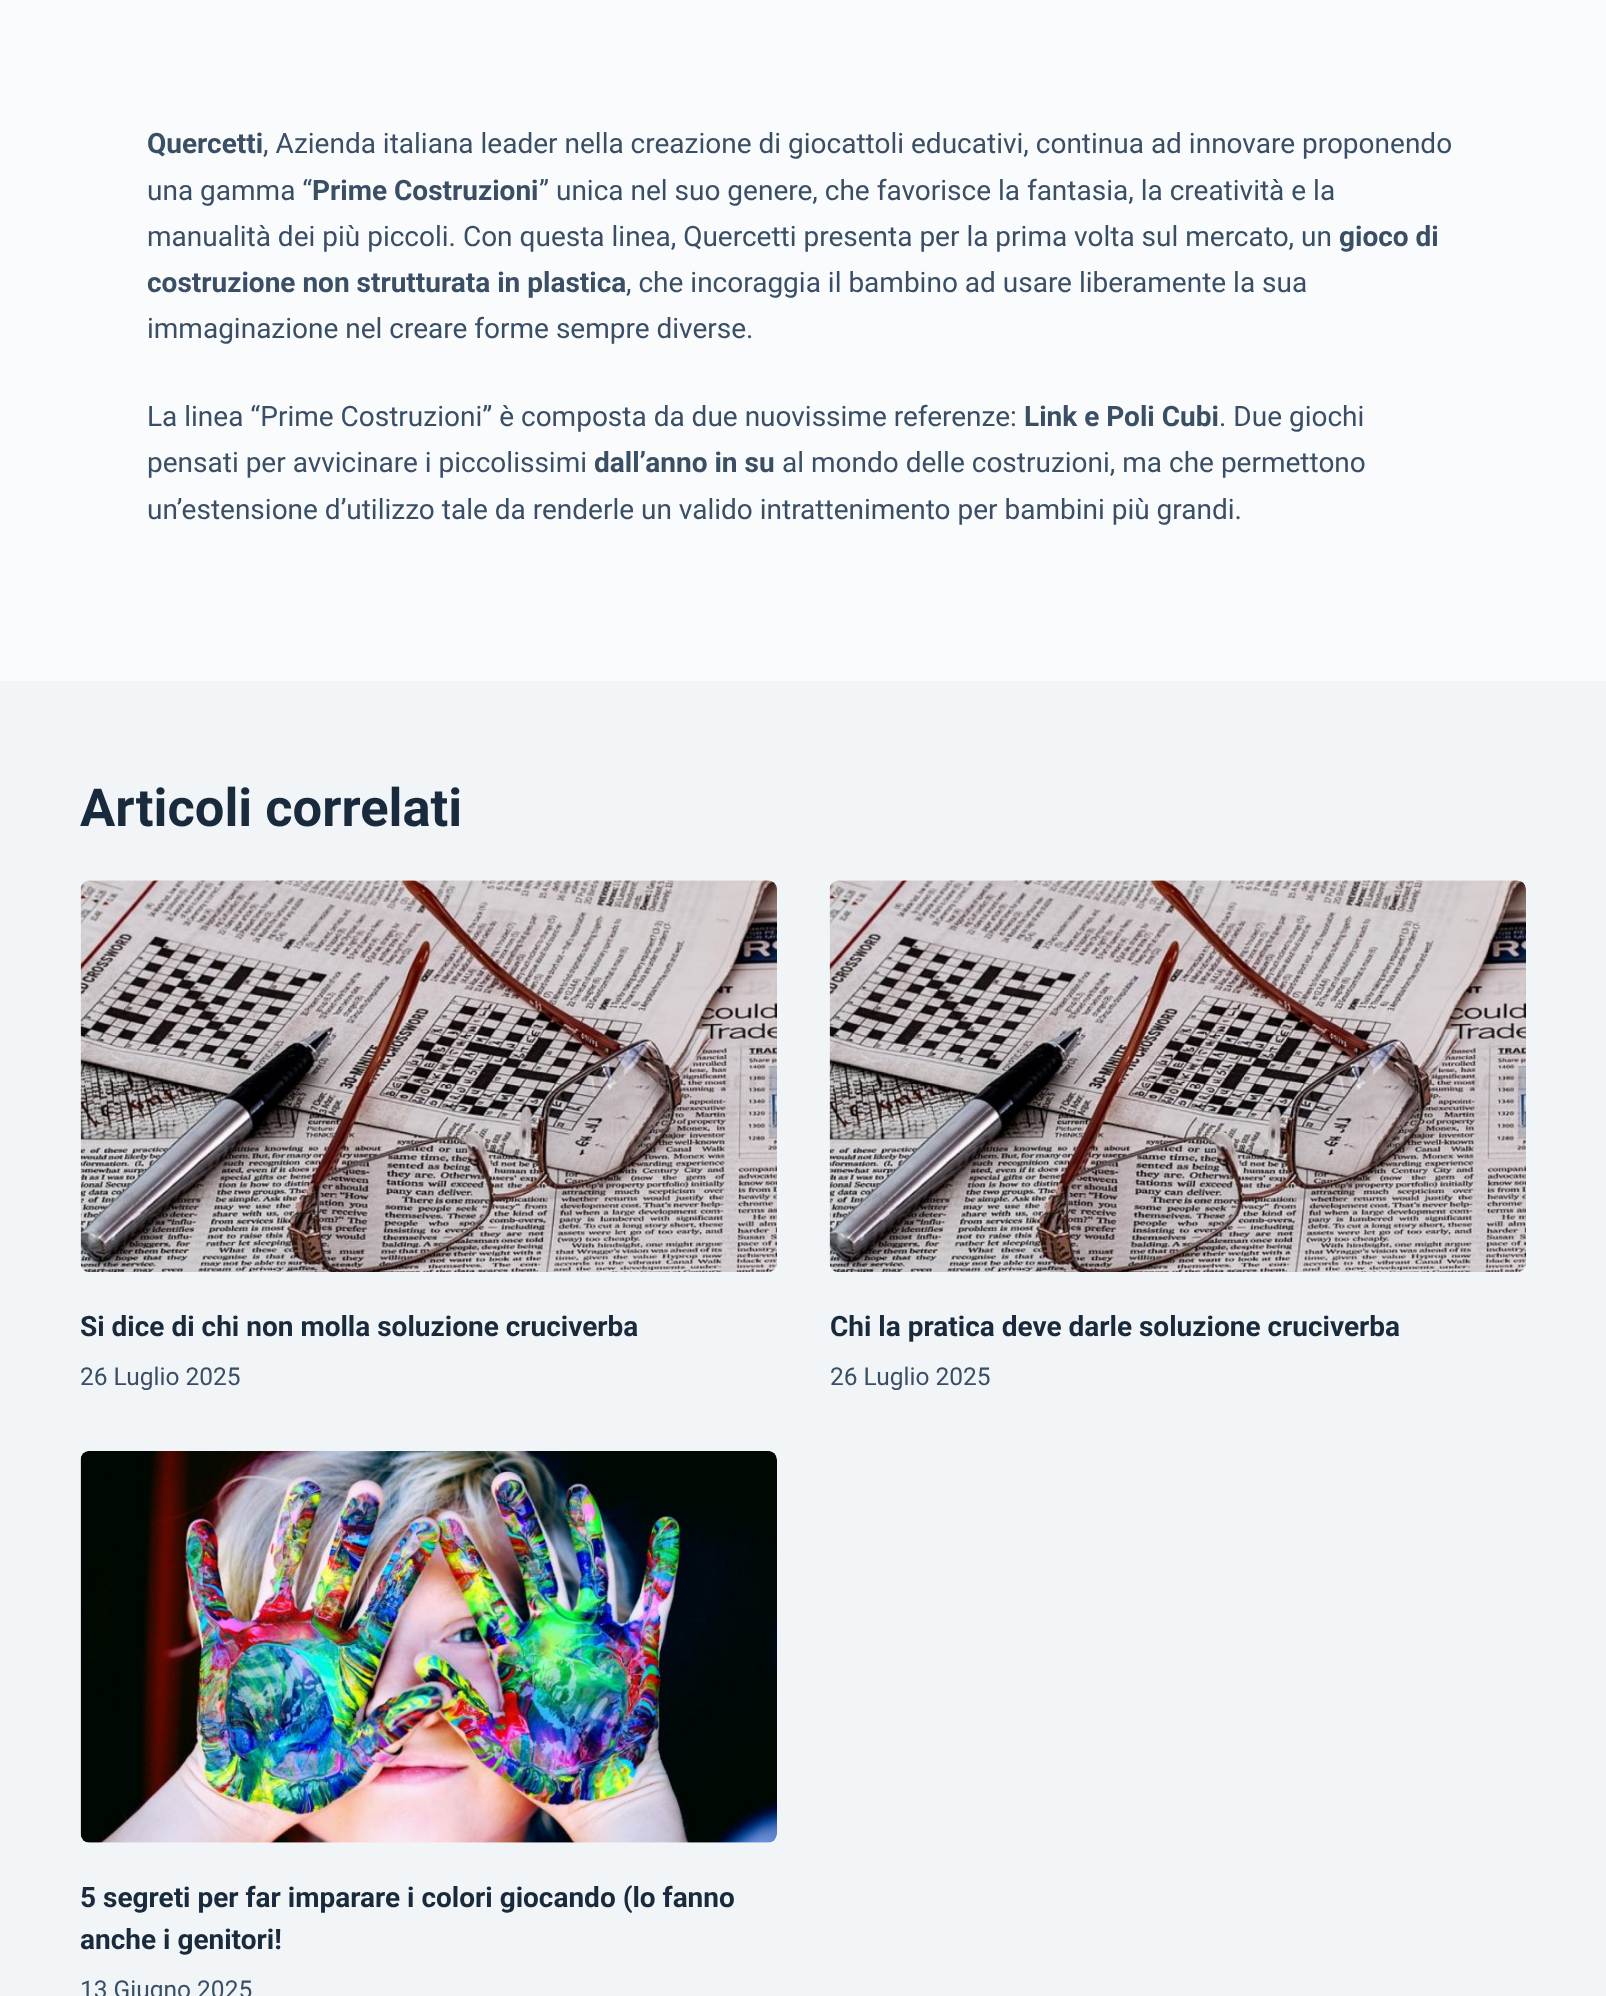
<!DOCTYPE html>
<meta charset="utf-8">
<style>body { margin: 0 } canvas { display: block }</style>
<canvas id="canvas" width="1606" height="1996"></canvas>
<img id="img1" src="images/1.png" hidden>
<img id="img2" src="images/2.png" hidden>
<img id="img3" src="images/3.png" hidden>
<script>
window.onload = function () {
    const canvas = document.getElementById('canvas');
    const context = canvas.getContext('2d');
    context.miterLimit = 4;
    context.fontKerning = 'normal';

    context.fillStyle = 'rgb(250, 251, 252)';
    context.fillRect(0, 0, 1606, 1996);
    context.fillStyle = 'rgb(242, 245, 247)';
    context.fillRect(0, 681, 1606, 1315);
    context.drawImage(document.getElementById('img1'), 80, 880, 697, 392);
    context.drawImage(document.getElementById('img2'), 829, 880, 697, 392);
    context.drawImage(document.getElementById('img3'), 80, 1451, 697, 392);
    context.font = 'bold 28px Roboto';
    context.fillStyle = 'rgb(58, 79, 102)';
    context.fillText('Quercetti', 147, 153);
    context.font = '28px Roboto';
    context.fillText(', Azienda italiana leader nella creazione di giocattoli educativi, continua ad innovare proponendo', 263, 153);
    context.fillText('una gamma “', 147, 200);
    context.font = 'bold 28px Roboto';
    context.fillText('Prime Costruzioni', 312, 200);
    context.font = '28px Roboto';
    context.fillText('” unica nel suo genere, che favorisce la fantasia, la creatività e la', 539, 200);
    context.fillText('manualità dei più piccoli. Con questa linea, Quercetti presenta per la prima volta sul mercato, un', 147, 246);
    context.font = 'bold 28px Roboto';
    context.fillText('gioco di', 1339, 246);
    context.fillText('costruzione non strutturata in plastica', 147, 292);
    context.font = '28px Roboto';
    context.fillText(', che incoraggia il bambino ad usare liberamente la sua', 626, 292);
    context.fillText('immaginazione nel creare forme sempre diverse.', 147, 338);
    context.fillText('La linea “Prime Costruzioni” è composta da due nuovissime referenze:', 147, 426);
    context.font = 'bold 28px Roboto';
    context.fillText('Link e Poli Cubi', 1024, 426);
    context.font = '28px Roboto';
    context.fillText('. Due giochi', 1219, 426);
    context.fillText('pensati per avvicinare i piccolissimi', 147, 472);
    context.font = 'bold 28px Roboto';
    context.fillText('dall’anno in su', 594, 472);
    context.font = '28px Roboto';
    context.fillText('al mondo delle costruzioni, ma che permettono', 782, 472);
    context.fillText('un’estensione d’utilizzo tale da renderle un valido intrattenimento per bambini più grandi.', 147, 519);
    context.font = 'bold 52.5px Roboto';
    context.fillStyle = 'rgb(25, 42, 61)';
    context.fillText('Articoli correlati', 80, 826);
    context.font = 'bold 28px Roboto';
    context.fillText('Si dice di chi non molla soluzione cruciverba', 80, 1336);
    context.font = '24.5px Roboto';
    context.fillStyle = 'rgb(58, 79, 102)';
    context.fillText('26 Luglio 2025', 80, 1385);
    context.font = 'bold 28px Roboto';
    context.fillStyle = 'rgb(25, 42, 61)';
    context.fillText('Chi la pratica deve darle soluzione cruciverba', 830, 1336);
    context.font = '24.5px Roboto';
    context.fillStyle = 'rgb(58, 79, 102)';
    context.fillText('26 Luglio 2025', 830, 1385);
    context.font = 'bold 28px Roboto';
    context.fillStyle = 'rgb(25, 42, 61)';
    context.fillText('5 segreti per far imparare i colori giocando (lo fanno', 80, 1907);
    context.fillText('anche i genitori!', 80, 1949);
    context.font = '24.5px Roboto';
    context.fillStyle = 'rgb(58, 79, 102)';
    context.fillText('13 Giugno 2025', 80, 1998);
};
</script>
